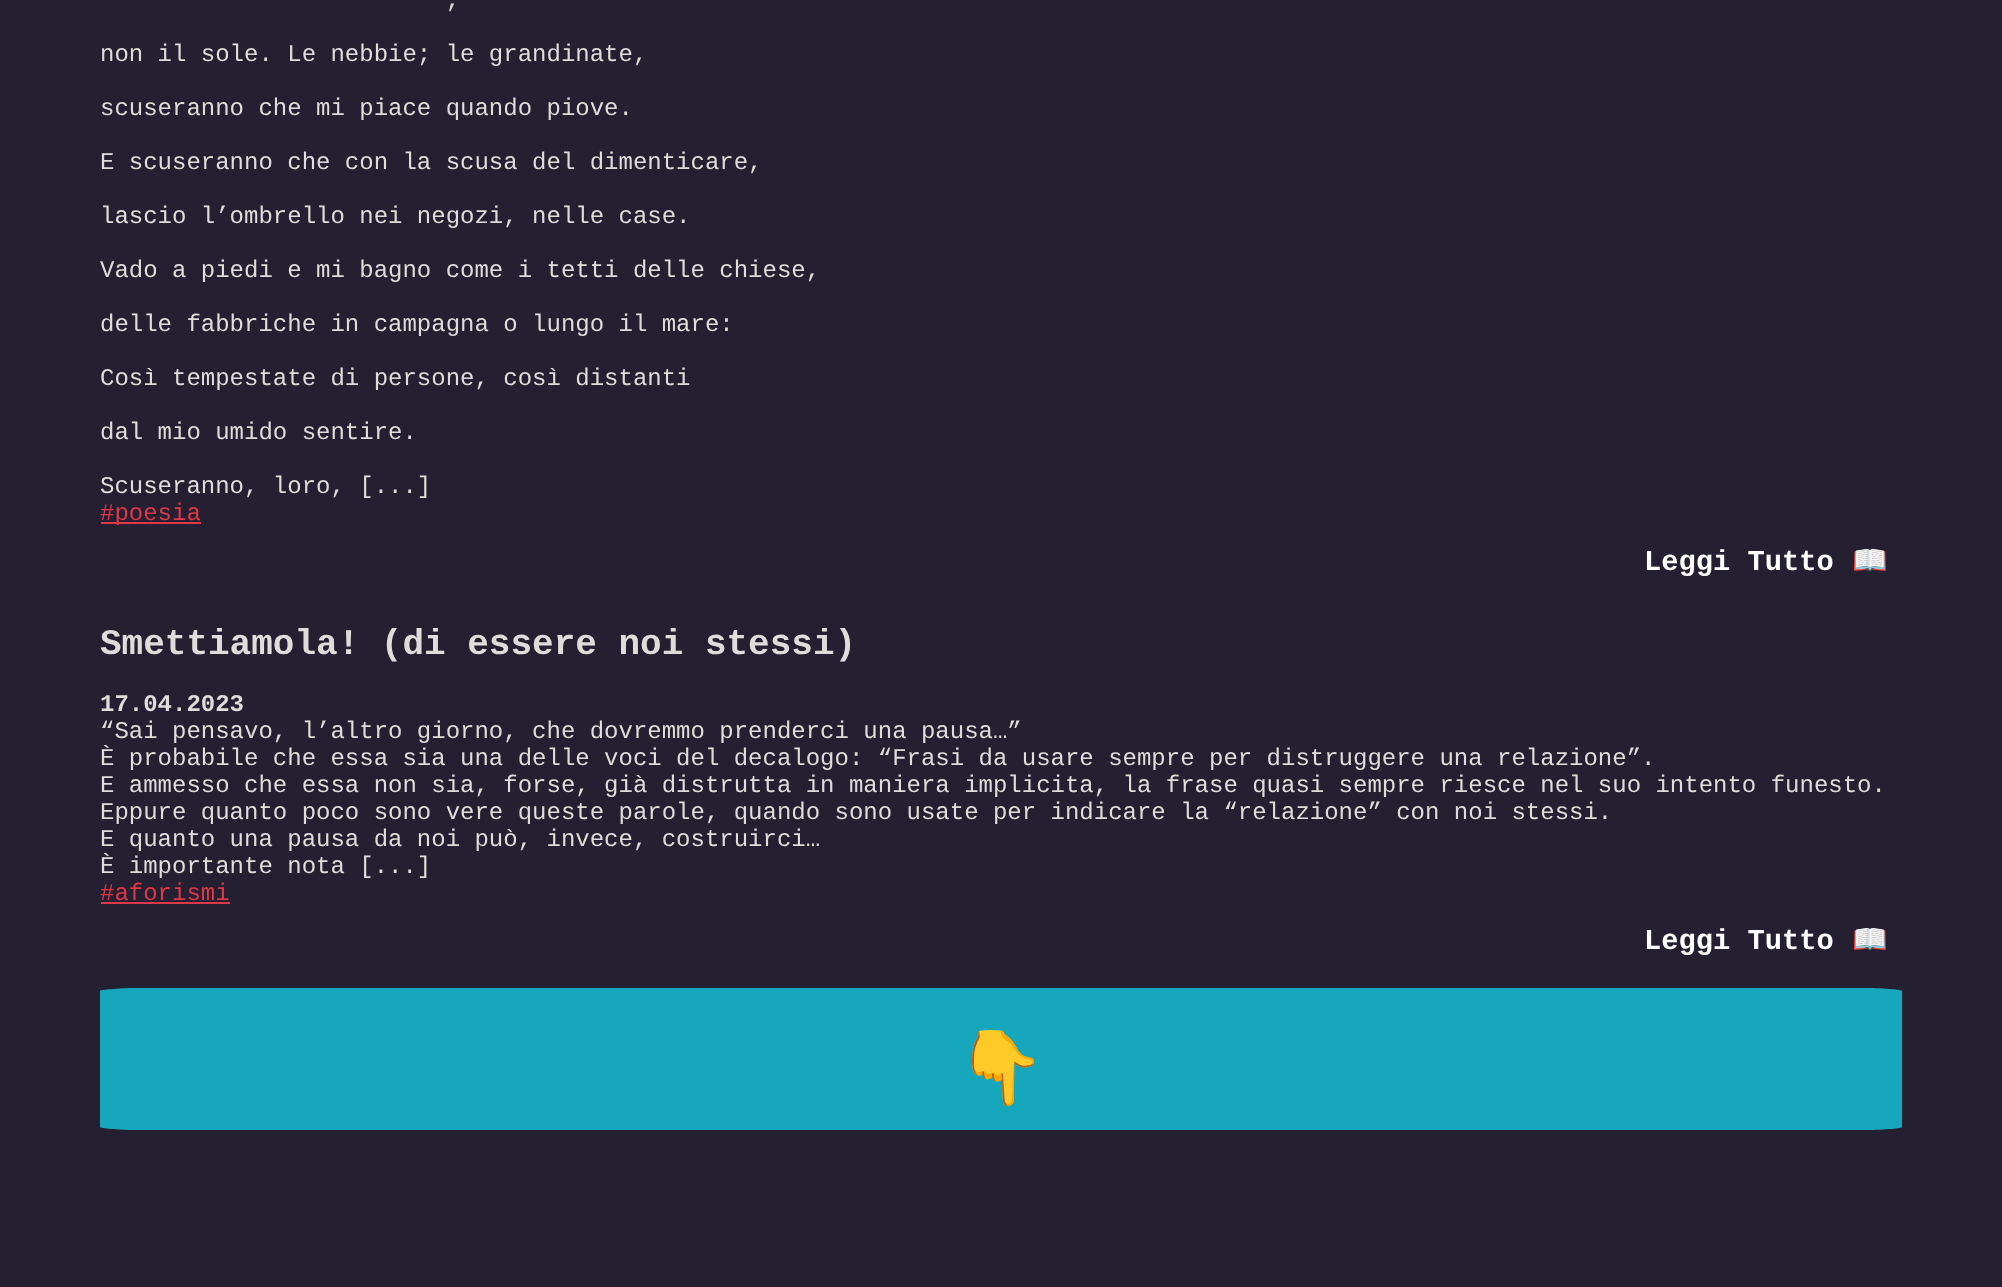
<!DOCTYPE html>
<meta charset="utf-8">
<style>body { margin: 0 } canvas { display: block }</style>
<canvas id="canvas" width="2002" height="1287"></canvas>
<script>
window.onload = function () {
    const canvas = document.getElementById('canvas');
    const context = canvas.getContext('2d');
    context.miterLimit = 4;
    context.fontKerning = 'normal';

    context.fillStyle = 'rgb(36, 31, 49)';
    context.fillRect(0, 0, 2002, 1287);
    context.fillStyle = 'rgb(222, 55, 71)';
    context.fillRect(101, 522, 100, 2);
    context.fillRect(101, 902, 129, 2);
    context.fillStyle = 'rgb(23, 167, 188)';
    context.beginPath();
    context.moveTo(137, 988);
    context.lineTo(1866, 988);
    context.bezierCurveTo(1886, 988, 1902, 990, 1902, 991);
    context.lineTo(1902, 1127);
    context.bezierCurveTo(1902, 1128, 1886, 1130, 1866, 1130);
    context.lineTo(137, 1130);
    context.bezierCurveTo(117, 1130, 100, 1128, 100, 1127);
    context.lineTo(100, 991);
    context.bezierCurveTo(100, 990, 117, 988, 137, 988);
    context.closePath();
    context.fill();
    context.font = '24px Liberation Mono';
    context.fillStyle = 'rgb(222, 221, 218)';
    context.fillText(',', 446, 7);
    context.fillText('non il sole. Le nebbie; le grandinate,', 100, 61);
    context.fillText('scuseranno che mi piace quando piove.', 100, 115);
    context.fillText('E scuseranno che con la scusa del dimenticare,', 100, 169);
    context.fillText('lascio l’ombrello nei negozi, nelle case.', 100, 223);
    context.fillText('Vado a piedi e mi bagno come i tetti delle chiese,', 100, 277);
    context.fillText('delle fabbriche in campagna o lungo il mare:', 100, 331);
    context.fillText('Così tempestate di persone, così distanti', 100, 385);
    context.fillText('dal mio umido sentire.', 100, 439);
    context.fillText('Scuseranno, loro, [...]', 100, 493);
    context.fillStyle = 'rgb(222, 55, 71)';
    context.fillText('#poesia', 100, 520);
    context.font = 'bold 28.75px Liberation Mono';
    context.fillStyle = 'rgb(255, 255, 255)';
    context.fillText('Leggi Tutto', 1644, 570);
    context.font = 'bold 28.75px Noto Color Emoji';
    context.fillText('📖', 1852, 570);
    context.font = 'bold 36px Liberation Mono';
    context.fillStyle = 'rgb(222, 221, 218)';
    context.fillText('Smettiamola! (di essere noi stessi)', 100, 654);
    context.font = 'bold 24px Liberation Mono';
    context.fillText('17.04.2023', 100, 711);
    context.font = '24px Liberation Mono';
    context.fillText('“Sai pensavo, l’altro giorno, che dovremmo prenderci una pausa…”', 100, 738);
    context.fillText('È probabile che essa sia una delle voci del decalogo: “Frasi da usare sempre per distruggere una relazione”.', 100, 765);
    context.fillText('E ammesso che essa non sia, forse, già distrutta in maniera implicita, la frase quasi sempre riesce nel suo intento funesto.', 100, 792);
    context.fillText('Eppure quanto poco sono vere queste parole, quando sono usate per indicare la “relazione” con noi stessi.', 100, 819);
    context.fillText('E quanto una pausa da noi può, invece, costruirci…', 100, 846);
    context.fillText('È importante nota [...]', 100, 873);
    context.fillStyle = 'rgb(222, 55, 71)';
    context.fillText('#aforismi', 100, 900);
    context.font = 'bold 28.75px Liberation Mono';
    context.fillStyle = 'rgb(255, 255, 255)';
    context.fillText('Leggi Tutto', 1644, 949);
    context.font = 'bold 28.75px Noto Color Emoji';
    context.fillText('📖', 1852, 949);
    context.font = 'bold 72px Noto Color Emoji';
    context.fillStyle = 'rgb(222, 221, 218)';
    context.fillText('👇', 956, 1092);
};
</script>
